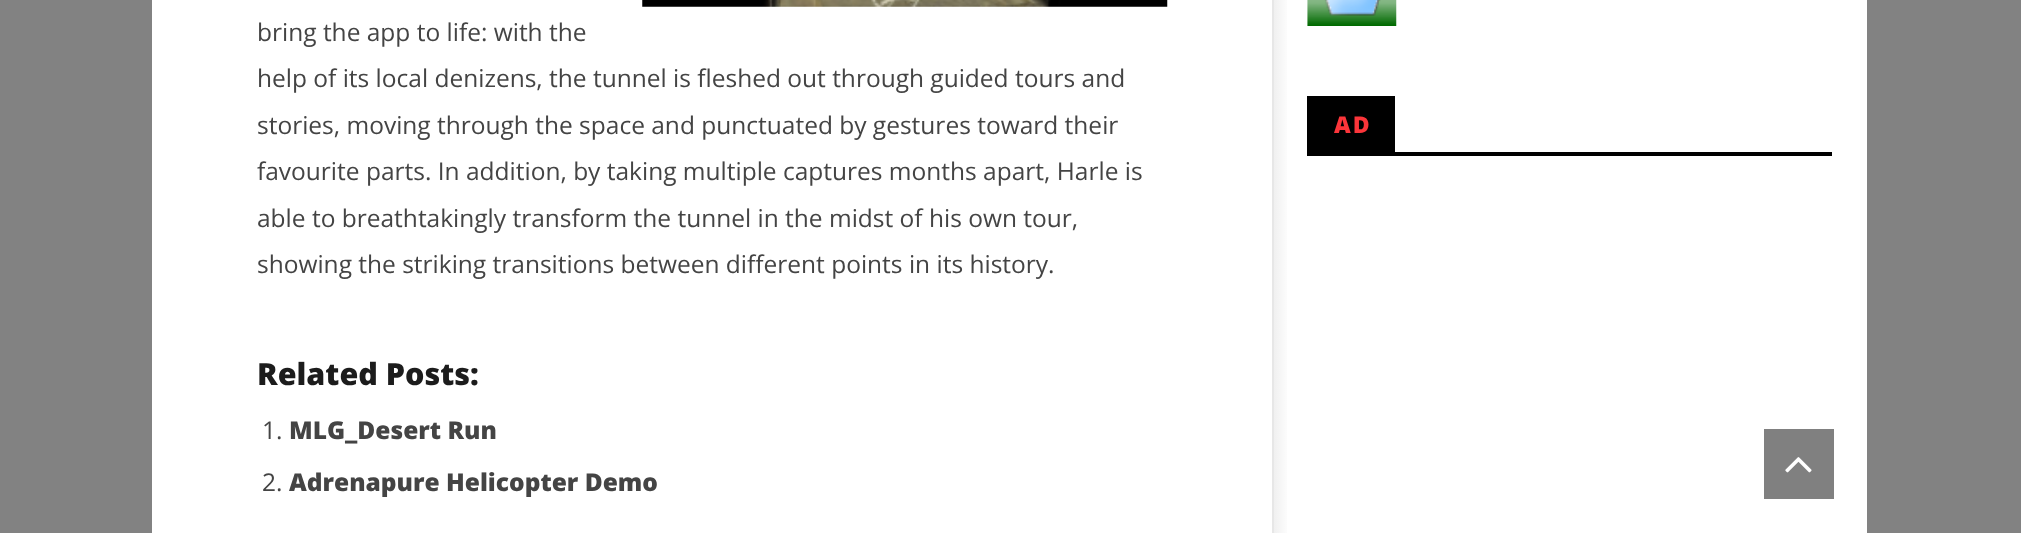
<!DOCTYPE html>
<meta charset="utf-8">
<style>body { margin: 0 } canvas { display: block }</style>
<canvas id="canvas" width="2021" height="533"></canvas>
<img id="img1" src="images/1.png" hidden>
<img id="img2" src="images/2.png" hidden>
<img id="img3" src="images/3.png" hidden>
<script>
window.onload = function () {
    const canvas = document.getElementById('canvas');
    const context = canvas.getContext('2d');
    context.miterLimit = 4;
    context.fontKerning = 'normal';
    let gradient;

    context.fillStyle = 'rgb(130, 130, 130)';
    context.fillRect(0, 0, 2021, 533);
    context.fillStyle = 'rgb(255, 255, 255)';
    context.fillRect(152, 0, 1715, 533);
    context.drawImage(document.getElementById('img1'), 642, 0, 526, 7);
    gradient = context.createLinearGradient(1274, 81, 1290, 81);
    gradient.addColorStop(0, 'rgb(240, 240, 240)');
    gradient.addColorStop(1, 'rgb(255, 255, 255)');
    context.fillStyle = gradient;
    context.fillRect(1274, 0, 13, 533);
    context.fillStyle = 'rgb(231, 231, 231)';
    context.fillRect(1272, 0, 2, 533);
    context.drawImage(document.getElementById('img2'), 1307, 0, 90, 26);
    context.fillStyle = 'rgb(0, 0, 0)';
    context.fillRect(1307, 96, 88, 56);
    context.fillRect(1307, 152, 525, 4);
    context.fillStyle = 'rgb(128, 128, 128)';
    context.fillRect(1764, 429, 70, 70);
    context.drawImage(document.getElementById('img3'), 1785, 457, 27, 16);
    context.font = '24.5px Open Sans';
    context.fillStyle = 'rgb(68, 68, 68)';
    context.fillText('bring the app to life: with the', 257, 41);
    context.fillText('help of its local denizens, the tunnel is fleshed out through guided tours and', 257, 87);
    context.fillText('stories, moving through the space and punctuated by gestures toward their', 257, 134);
    context.fillText('favourite parts. In addition, by taking multiple captures months apart, Harle is', 257, 180);
    context.fillText('able to breathtakingly transform the tunnel in the midst of his own tour,', 257, 227);
    context.fillText('showing the striking transitions between different points in its history.', 257, 273);
    context.font = '800 30.5px Open Sans';
    context.fillStyle = 'rgb(28, 28, 28)';
    context.fillText('Related Posts:', 257, 385);
    context.font = '24.5px Open Sans';
    context.fillStyle = 'rgb(68, 68, 68)';
    context.fillText('1.', 262, 439);
    context.font = '800 24.5px Open Sans';
    context.fillText('MLG_Desert Run', 289, 439);
    context.font = '24.5px Open Sans';
    context.fillText('2.', 262, 491);
    context.font = '800 24.5px Open Sans';
    context.fillText('Adrenapure Helicopter Demo', 289, 491);
    context.letterSpacing = '2px';
    context.font = '800 23px Open Sans';
    context.fillStyle = 'rgb(251, 53, 58)';
    context.fillText('AD', 1334, 133);
};
</script>
